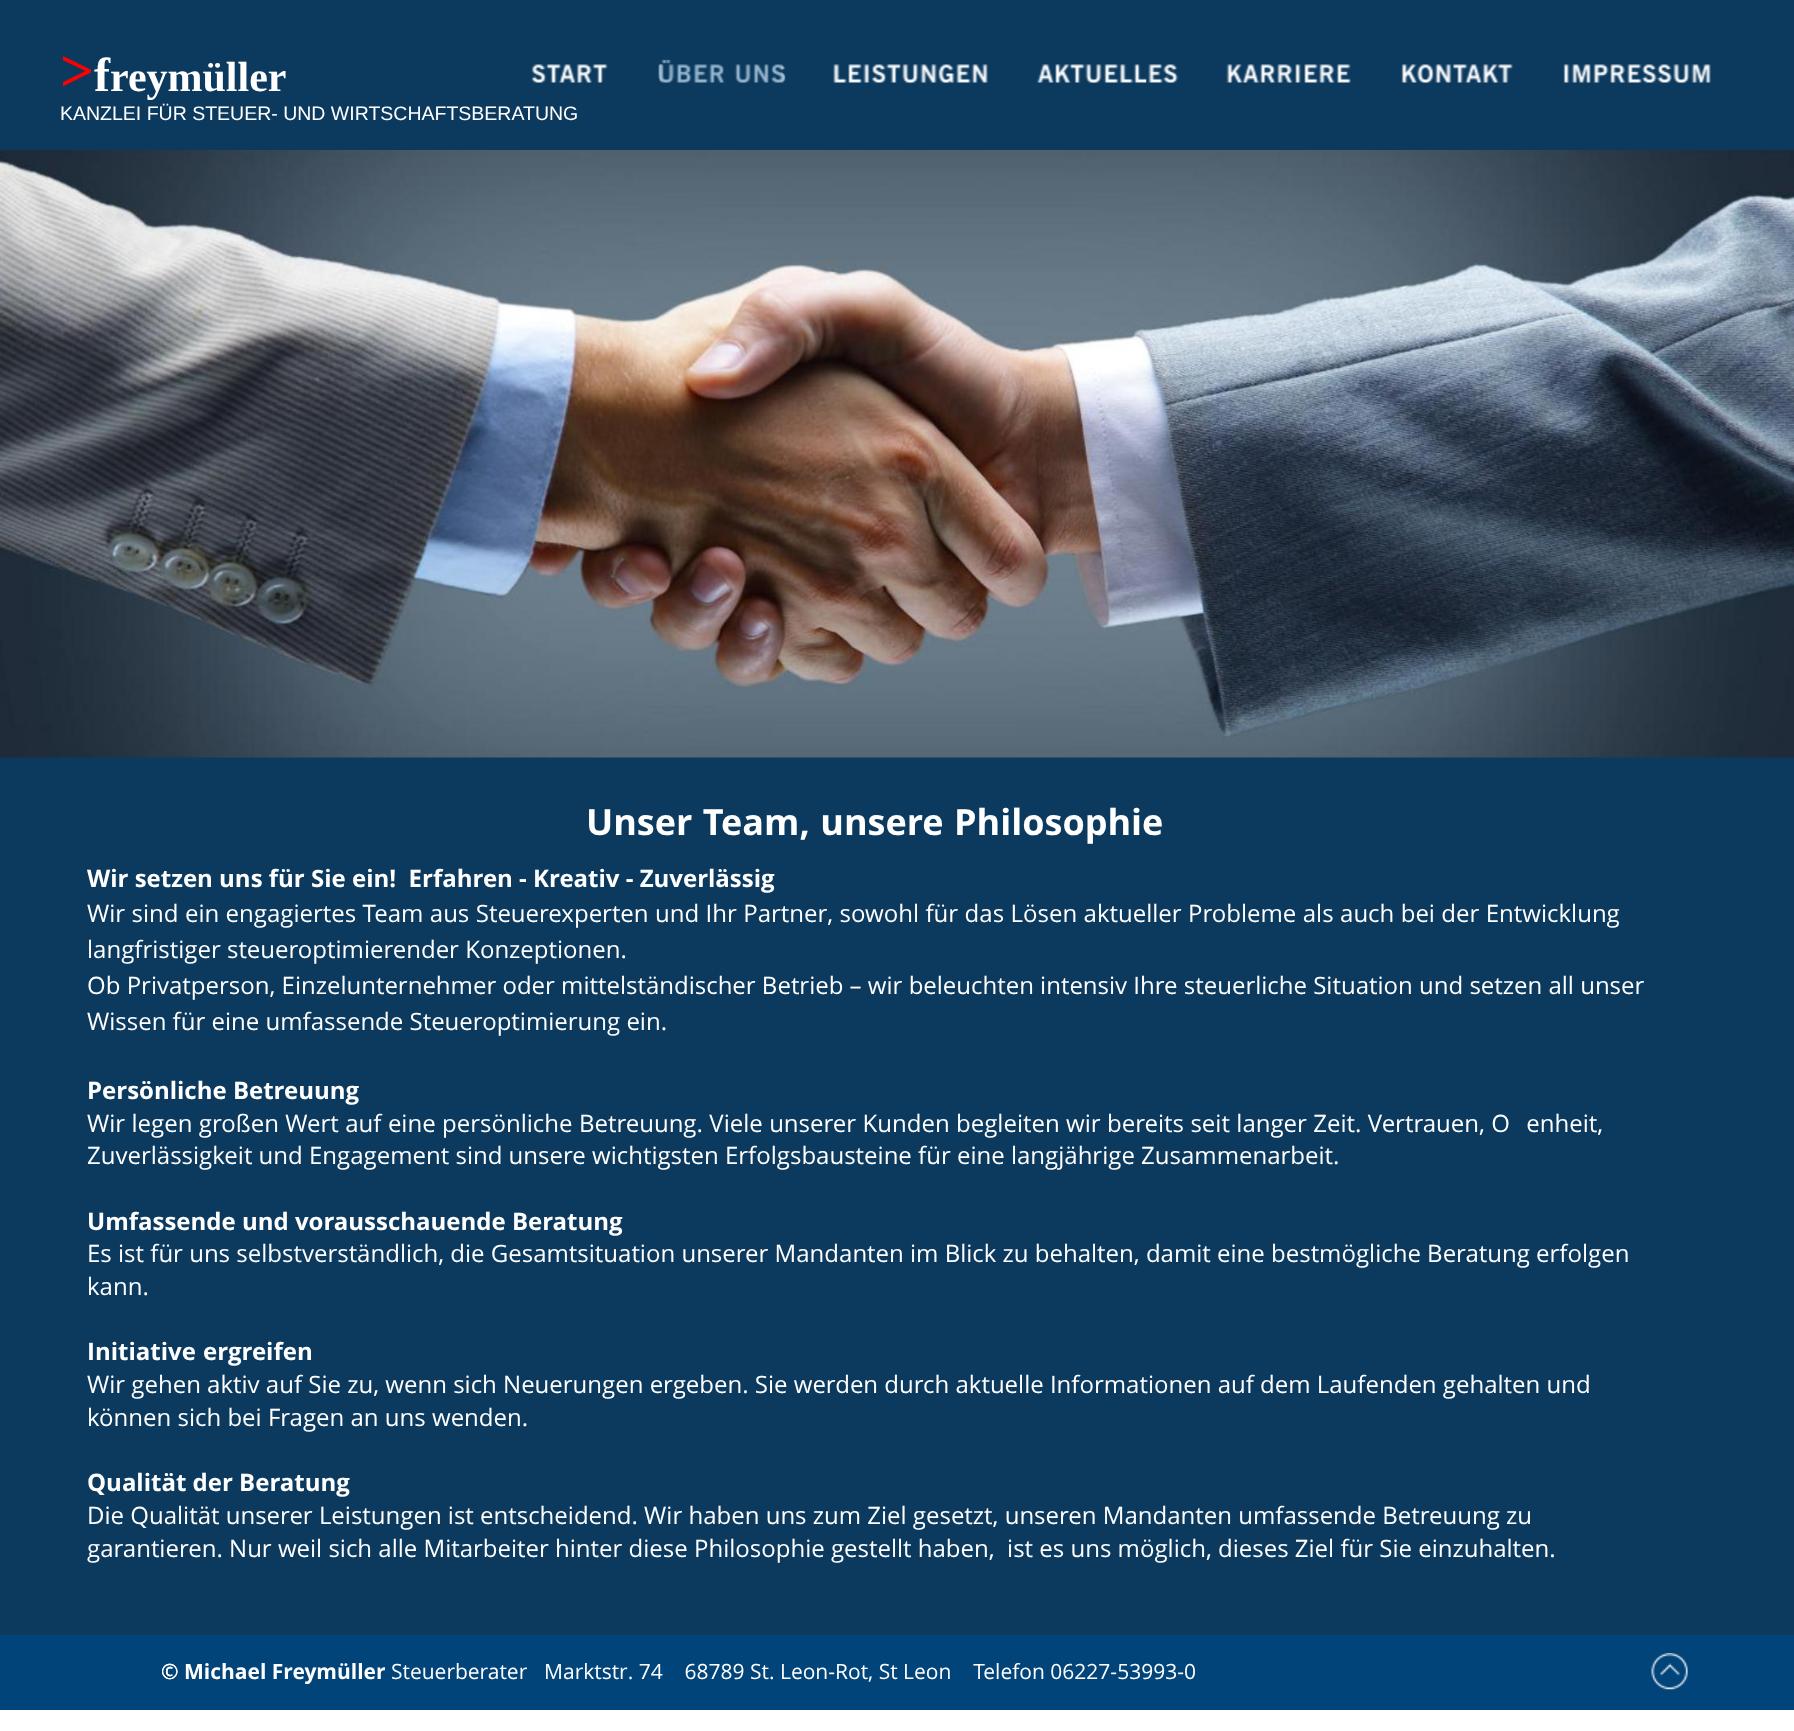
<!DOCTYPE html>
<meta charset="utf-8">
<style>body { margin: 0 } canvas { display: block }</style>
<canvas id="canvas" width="1794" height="1731"></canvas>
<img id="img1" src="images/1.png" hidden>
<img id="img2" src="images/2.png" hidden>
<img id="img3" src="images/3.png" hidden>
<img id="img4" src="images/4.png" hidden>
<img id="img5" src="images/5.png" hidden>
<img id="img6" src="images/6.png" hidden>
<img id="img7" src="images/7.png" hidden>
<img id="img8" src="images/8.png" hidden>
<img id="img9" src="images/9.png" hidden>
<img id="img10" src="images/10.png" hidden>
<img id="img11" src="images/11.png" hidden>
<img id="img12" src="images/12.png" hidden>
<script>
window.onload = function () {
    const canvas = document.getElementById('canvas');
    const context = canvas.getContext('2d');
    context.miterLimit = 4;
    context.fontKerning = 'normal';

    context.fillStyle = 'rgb(255, 255, 255)';
    context.fillRect(0, 0, 1794, 1731);
    context.fillStyle = 'rgb(12, 58, 95)';
    context.fillRect(0, 0, 1794, 150);
    context.drawImage(document.getElementById('img1'), 531, 64, 77, 19);
    context.drawImage(document.getElementById('img2'), 658, 59, 128, 25);
    context.drawImage(document.getElementById('img3'), 658, 59, 127, 25);
    context.drawImage(document.getElementById('img4'), 833, 64, 155, 20);
    context.drawImage(document.getElementById('img5'), 1037, 64, 142, 20);
    context.drawImage(document.getElementById('img6'), 1226, 64, 125, 19);
    context.drawImage(document.getElementById('img7'), 1401, 64, 112, 20);
    context.drawImage(document.getElementById('img8'), 1563, 64, 148, 20);
    context.fillRect(0, 757, 1794, 878);
    context.drawImage(document.getElementById('img9'), 0, 150, 1794, 608);
    context.fillStyle = 'rgb(0, 68, 122)';
    context.fillRect(0, 1635, 1794, 75);
    context.drawImage(document.getElementById('img10'), 1651, 1653, 37, 37);
    context.drawImage(document.getElementById('img11'), 1660, 1663, 11, 13);
    context.drawImage(document.getElementById('img12'), 1668, 1663, 12, 13);
    context.font = 'bold 60px Liberation Serif';
    context.fillStyle = 'rgb(255, 0, 0)';
    context.fillText('>', 60, 91);
    context.font = 'bold 48px Liberation Serif';
    context.fillStyle = 'rgb(255, 255, 255)';
    context.fillText('f', 94, 91);
    context.font = 'bold 42px Liberation Serif';
    context.fillText('reymüller', 110, 91);
    context.font = '19.5px Liberation Sans';
    context.fillText('KANZLEI FÜR STEUER- UND WIRTSCHAFTSBERATUNG', 60, 120);
    context.wordSpacing = '1px';
    context.font = 'bold 36px Open Sans';
    context.fillText('Unser Team, unsere Philosophie', 586, 835);
    context.wordSpacing = '0px';
    context.font = 'bold 24px Open Sans';
    context.fillText('Wir setzen uns für Sie ein!  Erfahren - Kreativ - Zuverlässig', 87, 887);
    context.wordSpacing = '0.2px';
    context.font = '24px Open Sans';
    context.fillText('Wir sind ein engagiertes Team aus Steuerexperten und Ihr Partner, sowohl für das Lösen aktueller Probleme als auch bei der Entwicklung', 87, 922);
    context.wordSpacing = '0px';
    context.fillText('langfristiger steueroptimierender Konzeptionen.', 87, 958);
    context.fillText('Ob Privatperson, Einzelunternehmer oder mittelständischer Betrieb – wir beleuchten intensiv Ihre steuerliche Situation und setzen all unser', 87, 994);
    context.fillText('Wissen für eine umfassende Steueroptimierung ein.', 87, 1030);
    context.font = 'bold 24px Open Sans';
    context.fillText('Persönliche Betreuung', 87, 1099);
    context.wordSpacing = '0.2px';
    context.font = '24px Open Sans';
    context.fillText('Wir legen großen Wert auf eine persönliche Betreuung. Viele unserer Kunden begleiten wir bereits seit langer Zeit. Vertrauen, Offenheit,', 87, 1132);
    context.wordSpacing = '0px';
    context.fillText('Zuverlässigkeit und Engagement sind unsere wichtigsten Erfolgsbausteine für eine langjährige Zusammenarbeit.', 87, 1164);
    context.font = 'bold 24px Open Sans';
    context.fillText('Umfassende und vorausschauende Beratung', 87, 1230);
    context.font = '24px Open Sans';
    context.fillText('Es ist für uns selbstverständlich, die Gesamtsituation unserer Mandanten im Blick zu behalten, damit eine bestmögliche Beratung erfolgen', 87, 1262);
    context.fillText('kann.', 87, 1295);
    context.wordSpacing = '1px';
    context.font = 'bold 24px Open Sans';
    context.fillText('Initiative ergreifen', 87, 1360);
    context.wordSpacing = '0px';
    context.font = '24px Open Sans';
    context.fillText('Wir gehen aktiv auf Sie zu, wenn sich Neuerungen ergeben. Sie werden durch aktuelle Informationen auf dem Laufenden gehalten und', 87, 1393);
    context.fillText('können sich bei Fragen an uns wenden.', 87, 1426);
    context.font = 'bold 24px Open Sans';
    context.fillText('Qualität der Beratung', 87, 1491);
    context.font = '24px Open Sans';
    context.fillText('Die Qualität unserer Leistungen ist entscheidend. Wir haben uns zum Ziel gesetzt, unseren Mandanten umfassende Betreuung zu', 87, 1524);
    context.fillText('garantieren. Nur weil sich alle Mitarbeiter hinter diese Philosophie gestellt haben,  ist es uns möglich, dieses Ziel für Sie einzuhalten.', 87, 1557);
    context.font = '21px Open Sans';
    context.fillText('©', 161, 1679);
    context.font = 'bold 21px Open Sans';
    context.fillText('Michael Freymüller', 184, 1679);
    context.font = '21px Open Sans';
    context.fillText('Steuerberater', 391, 1679);
    context.fillText('Marktstr. 74    68789 St. Leon-Rot, St Leon    Telefon 06227-53993-0', 544, 1679);
    context.fillText('©', 161, 1679);
};
</script>
